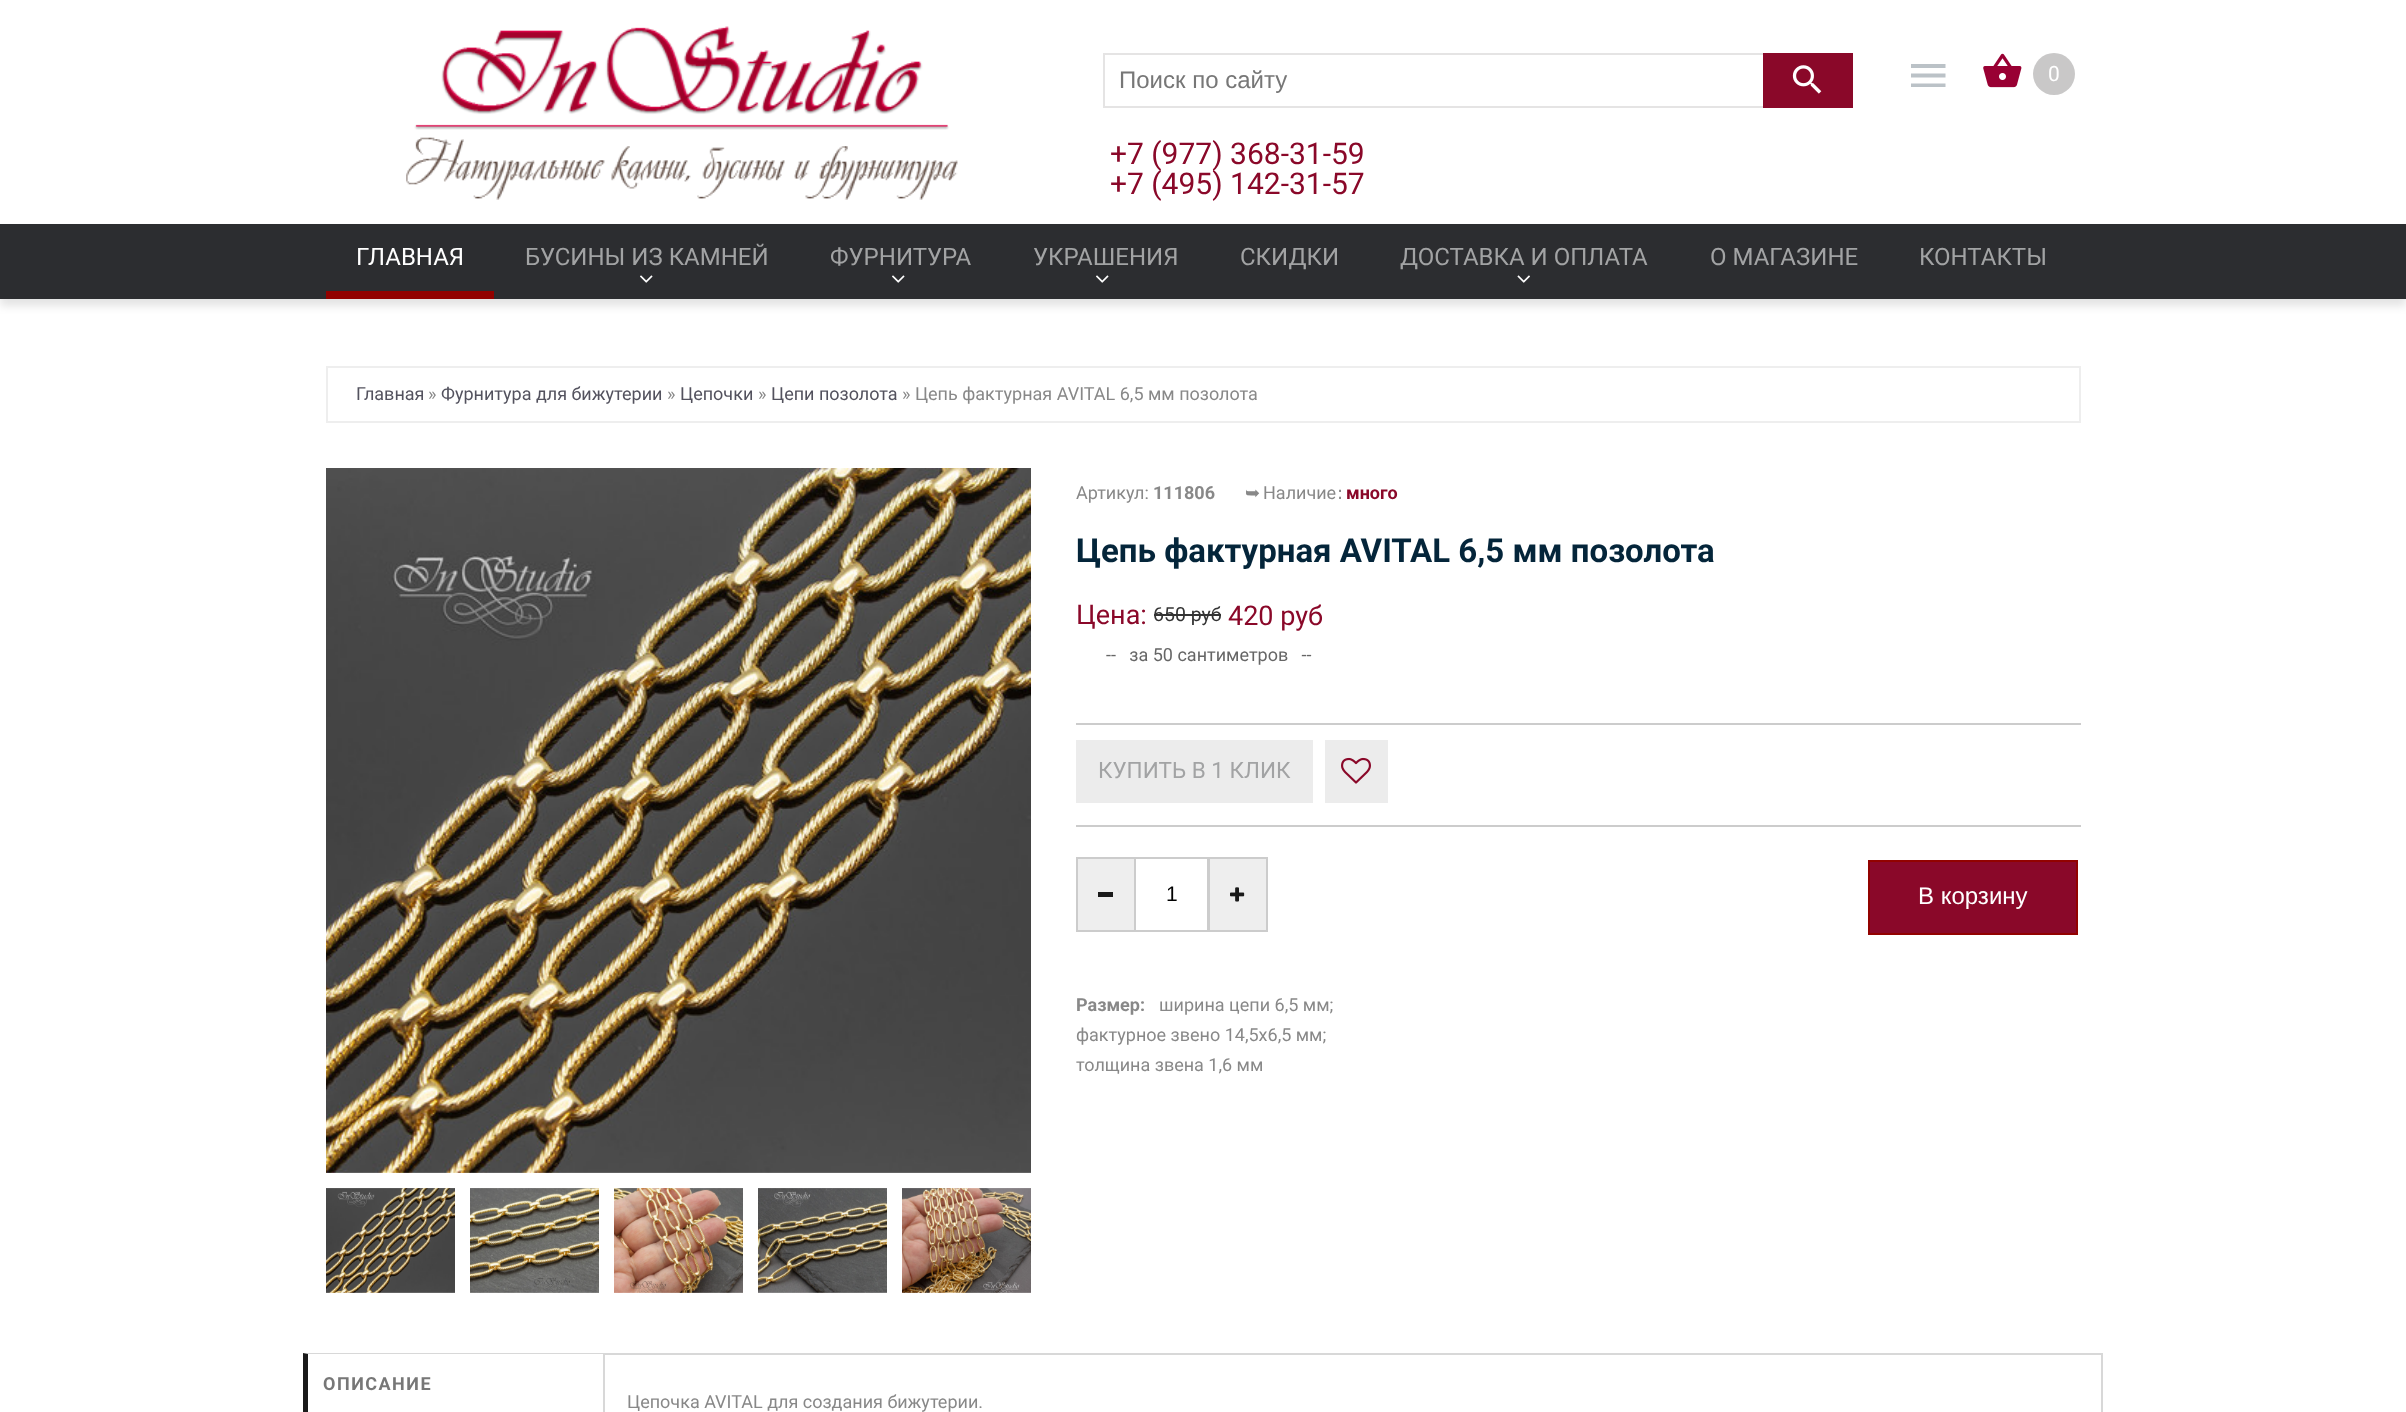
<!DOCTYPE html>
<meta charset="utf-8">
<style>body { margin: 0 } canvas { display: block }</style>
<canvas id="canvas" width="2406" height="1412"></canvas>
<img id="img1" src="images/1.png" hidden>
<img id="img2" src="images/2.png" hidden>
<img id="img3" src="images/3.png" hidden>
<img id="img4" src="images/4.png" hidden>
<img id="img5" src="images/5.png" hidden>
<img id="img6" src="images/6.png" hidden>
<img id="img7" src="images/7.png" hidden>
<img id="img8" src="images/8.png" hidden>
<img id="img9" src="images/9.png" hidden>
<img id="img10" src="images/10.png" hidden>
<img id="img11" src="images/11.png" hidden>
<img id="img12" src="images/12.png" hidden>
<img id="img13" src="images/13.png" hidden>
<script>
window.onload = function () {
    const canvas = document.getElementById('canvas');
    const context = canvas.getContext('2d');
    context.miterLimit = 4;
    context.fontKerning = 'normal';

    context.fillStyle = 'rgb(255, 255, 255)';
    context.fillRect(0, 0, 2406, 1412);
    context.drawImage(document.getElementById('img1'), 406, 26, 552, 174);
    context.strokeStyle = 'rgb(229, 228, 228)';
    context.lineWidth = 2;
    context.strokeRect(1104, 54, 748, 53);
    context.fillStyle = 'rgb(138, 8, 41)';
    context.fillRect(1763, 53, 90, 55);
    context.drawImage(document.getElementById('img2'), 1792, 65, 30, 29);
    context.fillStyle = 'rgb(187, 194, 199)';
    context.beginPath();
    context.moveTo(1911, 87);
    context.lineTo(1945.5, 87);
    context.lineTo(1945.5, 83.5);
    context.lineTo(1911, 83.5);
    context.closePath();
    context.moveTo(1911, 77.5);
    context.lineTo(1945.5, 77.5);
    context.lineTo(1945.5, 73.5);
    context.lineTo(1911, 73.5);
    context.closePath();
    context.moveTo(1911, 64);
    context.lineTo(1911, 68);
    context.lineTo(1945.5, 68);
    context.lineTo(1945.5, 64);
    context.closePath();
    context.fill();
    context.drawImage(document.getElementById('img3'), 1983, 53, 39, 35);
    context.fillStyle = 'rgb(201, 200, 200)';
    context.beginPath();
    context.arc(2054, 74, 21, 0, 2 * Math.PI);
    context.fill();
    context.fillStyle = 'rgba(0, 0, 0, 0.11)';
    context.filter = 'blur(4px)';
    context.beginPath();
    context.rect(0, 231, 2406, 75);
    context.fill();
    context.filter = 'none';
    context.fillStyle = 'rgb(44, 45, 48)';
    context.fillRect(0, 224, 2406, 75);
    context.fillStyle = 'rgb(146, 2, 0)';
    context.fillRect(326, 291, 168, 8);
    context.drawImage(document.getElementById('img4'), 640, 275, 13, 8);
    context.drawImage(document.getElementById('img4'), 892, 275, 13, 8);
    context.drawImage(document.getElementById('img4'), 1096, 275, 13, 8);
    context.drawImage(document.getElementById('img5'), 1517, 275, 13, 8);
    context.strokeStyle = 'rgb(238, 238, 238)';
    context.strokeRect(327, 367, 1753, 55);
    context.drawImage(document.getElementById('img6'), 326, 468, 705, 705);
    context.drawImage(document.getElementById('img7'), 326, 1188, 129, 105);
    context.drawImage(document.getElementById('img8'), 470, 1188, 129, 105);
    context.drawImage(document.getElementById('img9'), 614, 1188, 129, 105);
    context.drawImage(document.getElementById('img10'), 758, 1188, 129, 105);
    context.drawImage(document.getElementById('img11'), 902, 1188, 129, 105);
    context.fillStyle = 'rgb(51, 51, 51)';
    context.fillRect(1154, 614, 67, 2);
    context.fillStyle = 'rgb(204, 204, 204)';
    context.fillRect(1076, 723, 1005, 2);
    context.fillRect(1076, 825, 1005, 2);
    context.fillStyle = 'rgb(236, 236, 236)';
    context.fillRect(1076, 740, 237, 63);
    context.fillRect(1325, 740, 63, 63);
    context.drawImage(document.getElementById('img12'), 1341, 757, 30, 27);
    context.fillStyle = 'rgb(238, 238, 238)';
    context.beginPath();
    context.rect(1077, 858, 58, 73);
    context.fill();
    context.strokeStyle = 'rgb(204, 204, 204)';
    context.stroke();
    context.fillStyle = 'rgb(26, 26, 26)';
    context.fillRect(1098, 892, 15, 5);
    context.strokeRect(1135, 858, 73, 73);
    context.fillStyle = 'rgb(238, 238, 238)';
    context.beginPath();
    context.rect(1209, 858, 58, 73);
    context.fill();
    context.stroke();
    context.drawImage(document.getElementById('img13'), 1230, 887, 15, 15);
    context.fillStyle = 'rgb(138, 8, 41)';
    context.beginPath();
    context.rect(1869, 861, 208, 73);
    context.fill();
    context.strokeStyle = 'rgb(146, 2, 0)';
    context.stroke();
    context.fillStyle = 'rgb(216, 216, 216)';
    context.beginPath();
    context.moveTo(303, 1353);
    context.lineTo(604, 1353);
    context.lineTo(604, 1354);
    context.lineTo(308, 1354);
    context.closePath();
    context.fill();
    context.fillStyle = 'rgb(26, 26, 26)';
    context.beginPath();
    context.moveTo(303, 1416);
    context.lineTo(303, 1353);
    context.lineTo(308, 1354);
    context.lineTo(308, 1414);
    context.closePath();
    context.fill();
    context.strokeStyle = 'rgb(216, 216, 216)';
    context.strokeRect(604, 1354, 1498, 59);
    context.font = '24px Liberation Sans';
    context.fillStyle = 'rgb(119, 119, 119)';
    context.fillText('Поиск по сайту', 1119, 88);
    context.font = '30px Roboto';
    context.fillStyle = 'rgb(138, 8, 41)';
    context.fillText('+7 (977) 368-31-59', 1110, 164);
    context.fillText('+7 (495) 142-31-57', 1110, 194);
    context.font = '21px Roboto';
    context.fillStyle = 'rgb(255, 255, 255)';
    context.fillText('0', 2048, 81);
    context.font = '24px Roboto';
    context.fillText('ГЛАВНАЯ', 356, 265);
    context.fillStyle = 'rgb(162, 163, 164)';
    context.fillText('БУСИНЫ ИЗ КАМНЕЙ', 525, 265);
    context.fillText('ФУРНИТУРА', 830, 265);
    context.fillText('УКРАШЕНИЯ', 1033, 265);
    context.fillText('СКИДКИ', 1240, 265);
    context.fillText('ДОСТАВКА И ОПЛАТА', 1400, 265);
    context.fillText('О МАГАЗИНЕ', 1710, 265);
    context.fillText('КОНТАКТЫ', 1919, 265);
    context.font = '18px Roboto';
    context.fillStyle = 'rgb(83, 82, 94)';
    context.fillText('Главная', 356, 400);
    context.fillStyle = 'rgb(136, 136, 136)';
    context.fillText('»', 428, 400);
    context.fillStyle = 'rgb(83, 82, 94)';
    context.fillText('Фурнитура для бижутерии', 441, 400);
    context.fillStyle = 'rgb(136, 136, 136)';
    context.fillText('»', 667, 400);
    context.fillStyle = 'rgb(83, 82, 94)';
    context.fillText('Цепочки', 680, 400);
    context.fillStyle = 'rgb(136, 136, 136)';
    context.fillText('»', 758, 400);
    context.fillStyle = 'rgb(83, 82, 94)';
    context.fillText('Цепи позолота', 771, 400);
    context.fillStyle = 'rgb(136, 136, 136)';
    context.fillText('» Цепь фактурная AVITAL 6,5 мм позолота', 902, 400);
    context.fillText('Артикул:', 1076, 499);
    context.font = 'bold 18px Roboto';
    context.fillText('111806', 1153, 499);
    context.font = '18px DejaVu Sans';
    context.fillText('➥', 1245, 499);
    context.font = '18px Roboto';
    context.fillText('Наличие', 1263, 499);
    context.font = '18px DejaVu Sans';
    context.fillText(':', 1337, 499);
    context.font = 'bold 18px Roboto';
    context.fillStyle = 'rgb(138, 8, 41)';
    context.fillText('много', 1346, 499);
    context.font = 'bold 33px Roboto';
    context.fillStyle = 'rgb(4, 37, 58)';
    context.fillText('Цепь фактурная AVITAL 6,5 мм позолота', 1076, 562);
    context.font = '27px Roboto';
    context.fillStyle = 'rgb(138, 8, 41)';
    context.fillText('Цена:', 1076, 624);
    context.font = '19.5px Roboto';
    context.fillStyle = 'rgb(51, 51, 51)';
    context.fillText('650 руб', 1153, 621);
    context.font = '27px Roboto';
    context.fillStyle = 'rgb(138, 8, 41)';
    context.fillText('420 руб', 1228, 625);
    context.font = '18px Roboto';
    context.fillStyle = 'rgb(102, 102, 102)';
    context.fillText('--   за 50 сантиметров   --', 1106, 661);
    context.font = '22.5px Roboto';
    context.fillStyle = 'rgb(162, 163, 164)';
    context.fillText('КУПИТЬ В 1 КЛИК', 1098, 778);
    context.font = '21px Liberation Sans';
    context.fillStyle = 'rgb(0, 0, 0)';
    context.fillText('1', 1166, 901);
    context.font = '24px Liberation Sans';
    context.fillStyle = 'rgb(255, 255, 255)';
    context.fillText('В корзину', 1918, 904);
    context.font = 'bold 18px Roboto';
    context.fillStyle = 'rgb(136, 136, 136)';
    context.fillText('Размер:', 1076, 1011);
    context.font = '18px Roboto';
    context.fillText('ширина цепи 6,5 мм;', 1159, 1011);
    context.fillText('фактурное звено 14,5х6,5 мм;', 1076, 1041);
    context.fillText('толщина звена 1,6 мм', 1076, 1071);
    context.letterSpacing = '1.5px';
    context.font = 'bold 18px Roboto';
    context.fillStyle = 'rgb(119, 119, 119)';
    context.fillText('ОПИСАНИЕ', 323, 1390);
    context.letterSpacing = '0px';
    context.font = '18px Roboto';
    context.fillStyle = 'rgb(136, 136, 136)';
    context.fillText('Цепочка AVITAL для создания бижутерии.', 627, 1408);
};
</script>
